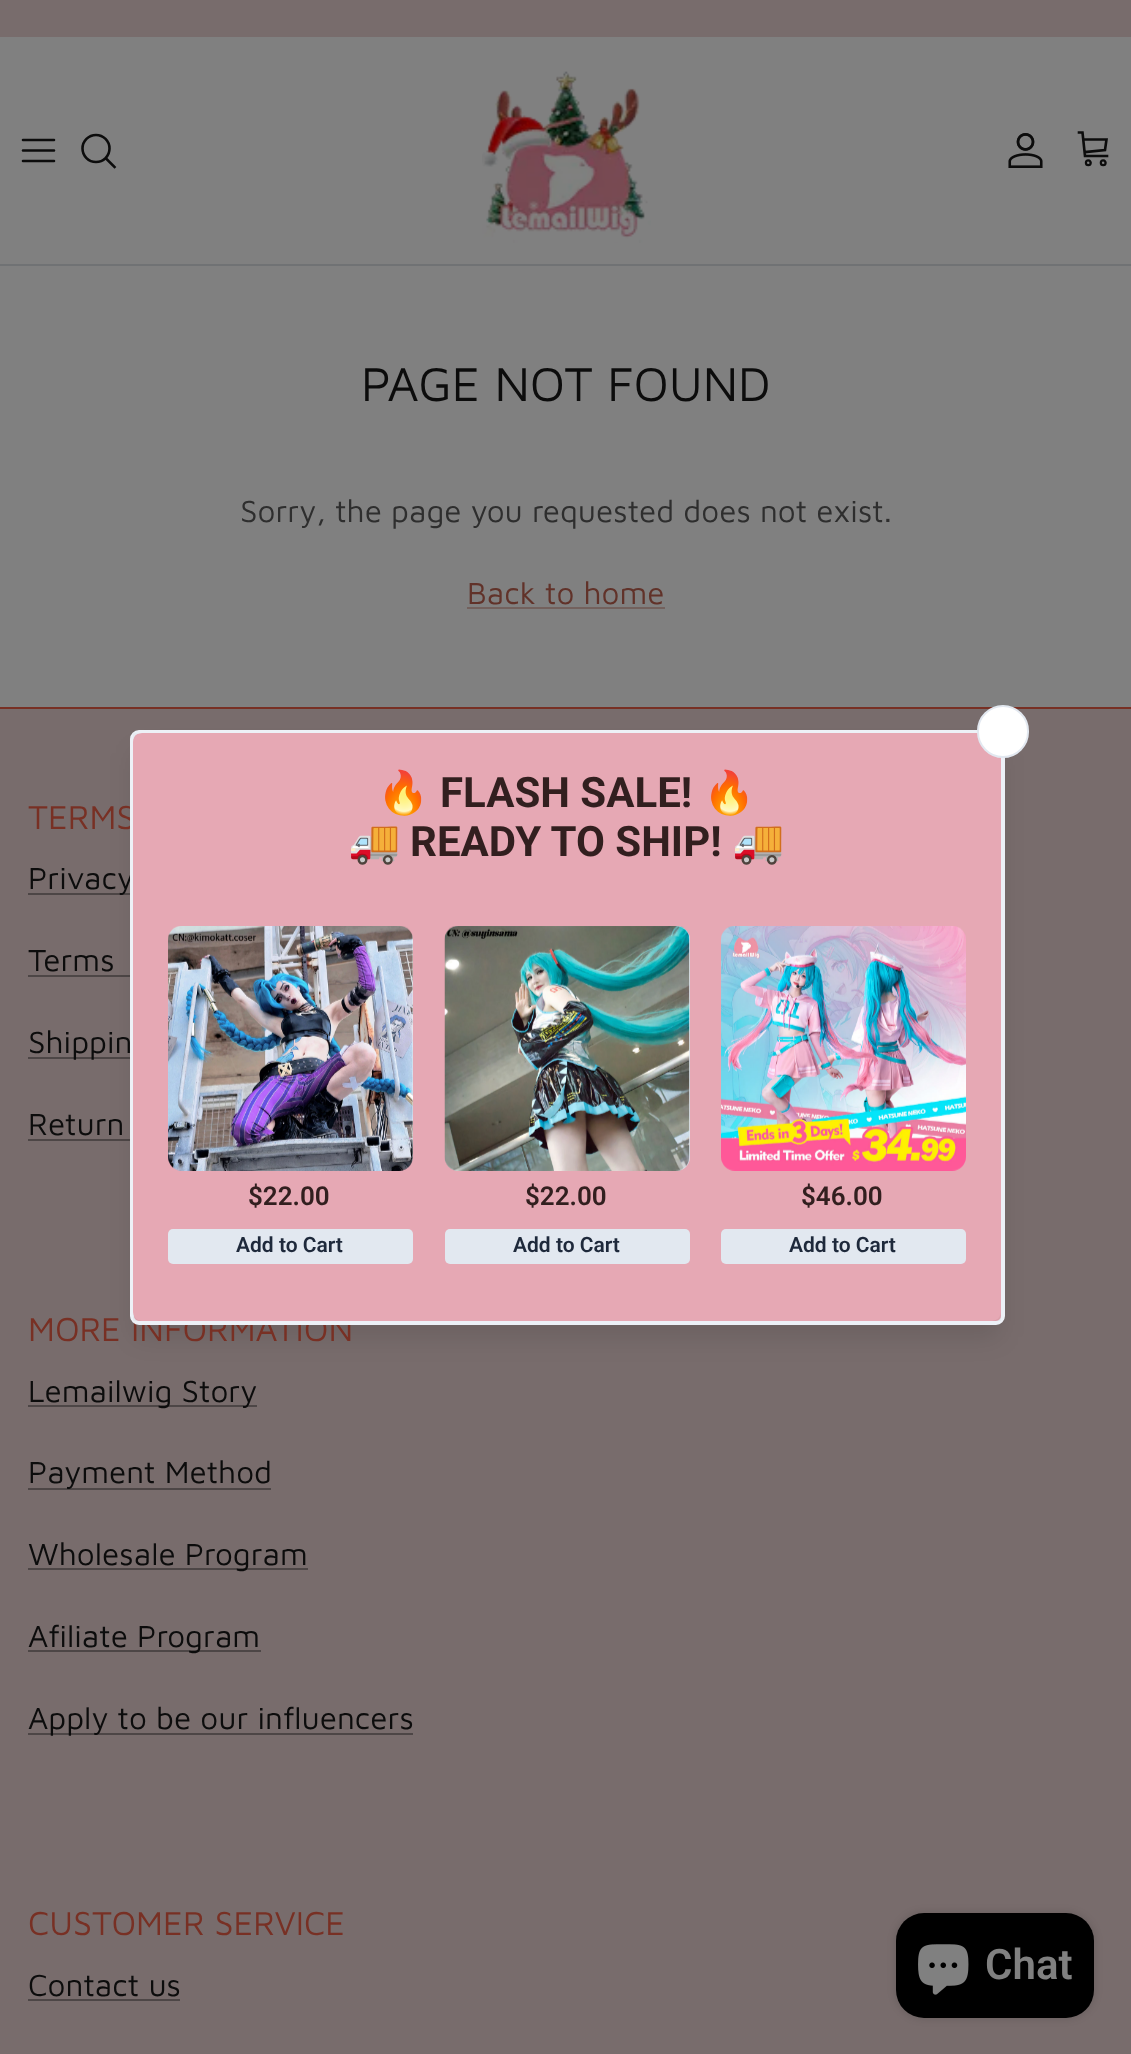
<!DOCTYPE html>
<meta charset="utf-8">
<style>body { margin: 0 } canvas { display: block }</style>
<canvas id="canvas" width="1131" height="2054"></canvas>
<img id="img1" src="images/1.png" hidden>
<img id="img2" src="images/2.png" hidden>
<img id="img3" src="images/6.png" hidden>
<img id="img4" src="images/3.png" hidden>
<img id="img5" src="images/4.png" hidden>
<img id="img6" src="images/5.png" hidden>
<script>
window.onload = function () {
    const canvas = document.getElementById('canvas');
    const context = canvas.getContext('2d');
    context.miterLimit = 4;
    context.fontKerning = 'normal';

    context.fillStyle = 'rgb(128, 128, 128)';
    context.fillRect(0, 0, 1131, 2054);
    context.fillStyle = 'rgb(120, 108, 108)';
    context.fillRect(0, 0, 1131, 37);
    context.fillStyle = 'rgb(112, 114, 116)';
    context.fillRect(0, 264, 1131, 2);
    context.beginPath();
    context.moveTo(23, 150.5);
    context.lineTo(54, 150.5);
    context.moveTo(23, 140);
    context.lineTo(54, 140);
    context.moveTo(23, 161);
    context.lineTo(54, 161);
    context.strokeStyle = 'rgb(12, 12, 12)';
    context.lineWidth = 2.6;
    context.lineCap = 'round';
    context.lineJoin = 'round';
    context.stroke();
    context.beginPath();
    context.arc(96, 148.5, 13.5, 0, 2 * Math.PI);
    context.stroke();
    context.beginPath();
    context.moveTo(106.5, 159);
    context.lineTo(114.5, 167);
    context.lineCap = 'square';
    context.lineJoin = 'miter';
    context.stroke();
    context.drawImage(document.getElementById('img1'), 482, 71, 169, 172);
    context.drawImage(document.getElementById('img2'), 1008, 133, 35, 35);
    context.beginPath();
    context.moveTo(1079, 132.5);
    context.lineTo(1082.5, 132.5);
    context.lineTo(1085, 156);
    context.lineTo(1107, 156);
    context.moveTo(1083.5, 139.5);
    context.lineTo(1106.5, 139.5);
    context.lineTo(1105, 150);
    context.lineTo(1086, 152);
    context.stroke();
    context.beginPath();
    context.arc(1088.3, 162.8, 2.4, 0, 2 * Math.PI);
    context.lineWidth = 2.2;
    context.stroke();
    context.beginPath();
    context.arc(1103.2, 162.8, 2.4, 0, 2 * Math.PI);
    context.stroke();
    context.fillStyle = 'rgb(115, 97, 93)';
    context.fillRect(467, 607, 198, 2);
    context.fillStyle = 'rgb(120, 108, 108)';
    context.fillRect(0, 709, 1131, 1345);
    context.fillStyle = 'rgb(120, 48, 36)';
    context.fillRect(0, 707, 1131, 2);
    context.fillStyle = 'rgb(77, 70, 70)';
    context.fillRect(28, 893, 102, 2);
    context.fillRect(28, 975, 102, 2);
    context.fillRect(28, 1057, 102, 2);
    context.fillRect(28, 1139, 102, 2);
    context.fillRect(28, 1405, 229, 2);
    context.fillRect(28, 1488, 243, 2);
    context.fillRect(28, 1568, 280, 2);
    context.fillRect(28, 1650, 233, 2);
    context.fillRect(28, 1733, 385, 2);
    context.fillRect(28, 1999, 152, 2);
    context.fillStyle = 'rgba(0, 0, 0, 0.1)';
    context.filter = 'blur(13px)';
    context.beginPath();
    context.roundRect(135, 753, 864, 584, 4);
    context.fill();
    context.filter = 'none';
    context.fillStyle = 'rgba(0, 0, 0, 0.15)';
    context.filter = 'blur(4.5px)';
    context.beginPath();
    context.roundRect(896, 1913, 198, 105, 28);
    context.fill();
    context.filter = 'none';
    context.fillStyle = 'rgb(0, 0, 0)';
    context.beginPath();
    context.roundRect(896, 1913, 198, 105, 28);
    context.fill();
    context.drawImage(document.getElementById('img3'), 918, 1944, 51, 51);
    context.font = '49px Maven Pro';
    context.fillStyle = 'rgb(12, 12, 12)';
    context.fillText('PAGE NOT FOUND', 361, 401);
    context.font = '31.5px Maven Pro';
    context.fillStyle = 'rgb(46, 46, 46)';
    context.fillText('Sorry, the page you requested does not exist.', 240, 522);
    context.fillStyle = 'rgb(97, 50, 41)';
    context.fillText('Back to home', 467, 604);
    context.font = '34.25px Maven Pro';
    context.fillStyle = 'rgb(120, 48, 36)';
    context.fillText('TERMS', 28, 829);
    context.font = '31.5px Maven Pro';
    context.fillStyle = 'rgb(12, 12, 12)';
    context.fillText('Privacy', 28, 889);
    context.fillText('Terms', 28, 971);
    context.fillText('Shippin', 28, 1053);
    context.fillText('Return', 28, 1135);
    context.font = '34.25px Maven Pro';
    context.fillStyle = 'rgb(120, 48, 36)';
    context.fillText('MORE INFORMATION', 28, 1341);
    context.font = '31.5px Maven Pro';
    context.fillStyle = 'rgb(12, 12, 12)';
    context.fillText('Lemailwig Story', 28, 1402);
    context.fillText('Payment Method', 28, 1483);
    context.fillText('Wholesale Program', 28, 1565);
    context.fillText('Afiliate Program', 28, 1647);
    context.fillText('Apply to be our influencers', 28, 1729);
    context.font = '34.25px Maven Pro';
    context.fillStyle = 'rgb(120, 48, 36)';
    context.fillText('CUSTOMER SERVICE', 28, 1935);
    context.font = '31.5px Maven Pro';
    context.fillStyle = 'rgb(12, 12, 12)';
    context.fillText('Contact us', 28, 1996);
    context.fillStyle = 'rgb(230, 168, 180)';
    context.beginPath();
    context.roundRect(132, 732, 871, 591, 7);
    context.fill();
    context.strokeStyle = 'rgb(237, 241, 247)';
    context.lineWidth = 4;
    context.stroke();
    context.save();
    context.beginPath();
    context.rect(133, 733, 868, 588);
    context.clip();
    context.fillStyle = 'rgba(0, 0, 0, 0.05)';
    context.filter = 'blur(5px)';
    context.beginPath();
    context.roundRect(137, 744, 861, 581, 5);
    context.fill();
    context.filter = 'none';
    context.fillStyle = 'rgba(0, 0, 0, 0.12)';
    context.filter = 'blur(17.5px)';
    context.beginPath();
    context.roundRect(138, 739, 858, 577, 4);
    context.fill();
    context.filter = 'none';
    context.restore();
    context.beginPath();
    context.roundRect(133, 733, 868, 588, 9);
    context.fill();
    context.fillStyle = 'rgb(255, 255, 255)';
    context.beginPath();
    context.roundRect(978, 706, 50, 51, 25);
    context.fill();
    context.strokeStyle = 'rgb(226, 232, 240)';
    context.lineWidth = 2;
    context.stroke();
    context.font = 'bold 42px Noto Color Emoji';
    context.fillStyle = 'rgb(50, 31, 31)';
    context.fillText('🔥', 377, 807);
    context.font = 'bold 42px Roboto';
    context.fillText('FLASH SALE!', 440, 807);
    context.font = 'bold 42px Noto Color Emoji';
    context.fillText('🔥', 703, 807);
    context.fillText('🚚', 348, 856);
    context.font = 'bold 42px Roboto';
    context.fillText('READY TO SHIP!', 410, 856);
    context.font = 'bold 42px Noto Color Emoji';
    context.fillText('🚚', 732, 856);
    context.drawImage(document.getElementById('img4'), 168, 926, 245, 245);
    context.font = '600 26px Roboto';
    context.fillText('$22.00', 248, 1205);
    context.fillStyle = 'rgb(226, 232, 240)';
    context.beginPath();
    context.roundRect(168, 1229, 245, 35, 5);
    context.fill();
    context.font = '600 21px Roboto';
    context.fillStyle = 'rgb(30, 41, 59)';
    context.fillText('Add to Cart', 236, 1252);
    context.fillStyle = 'rgb(226, 232, 240)';
    context.beginPath();
    context.roundRect(445, 926, 245, 245, 14);
    context.fill();
    context.drawImage(document.getElementById('img5'), 444, 926, 246, 245);
    context.font = '600 26px Roboto';
    context.fillStyle = 'rgb(50, 31, 31)';
    context.fillText('$22.00', 525, 1205);
    context.fillStyle = 'rgb(226, 232, 240)';
    context.beginPath();
    context.roundRect(445, 1229, 245, 35, 5);
    context.fill();
    context.font = '600 21px Roboto';
    context.fillStyle = 'rgb(30, 41, 59)';
    context.fillText('Add to Cart', 513, 1252);
    context.drawImage(document.getElementById('img6'), 721, 926, 245, 245);
    context.font = '600 26px Roboto';
    context.fillStyle = 'rgb(50, 31, 31)';
    context.fillText('$46.00', 801, 1205);
    context.fillStyle = 'rgb(226, 232, 240)';
    context.beginPath();
    context.roundRect(721, 1229, 245, 35, 5);
    context.fill();
    context.font = '600 21px Roboto';
    context.fillStyle = 'rgb(30, 41, 59)';
    context.fillText('Add to Cart', 789, 1252);
    context.font = '600 42px Roboto';
    context.fillStyle = 'rgb(128, 128, 128)';
    context.fillText('Chat', 985, 1979);
};
</script>
